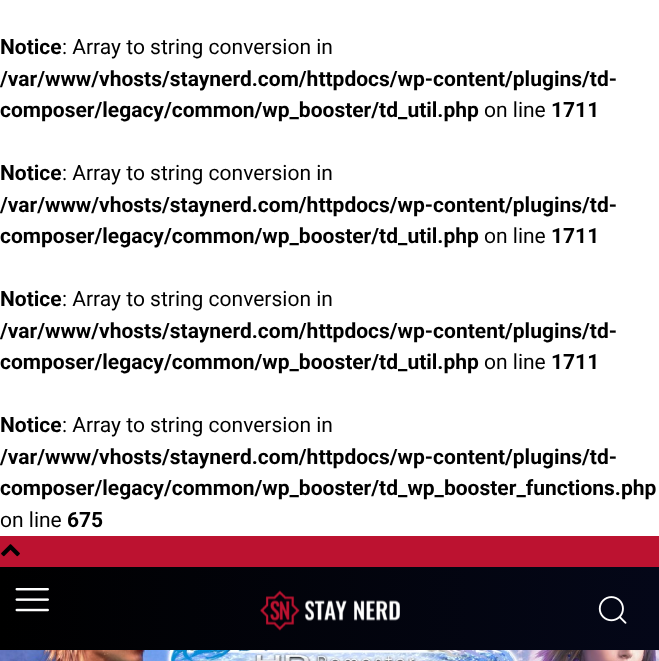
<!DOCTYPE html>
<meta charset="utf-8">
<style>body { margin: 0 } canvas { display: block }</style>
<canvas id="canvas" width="659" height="661"></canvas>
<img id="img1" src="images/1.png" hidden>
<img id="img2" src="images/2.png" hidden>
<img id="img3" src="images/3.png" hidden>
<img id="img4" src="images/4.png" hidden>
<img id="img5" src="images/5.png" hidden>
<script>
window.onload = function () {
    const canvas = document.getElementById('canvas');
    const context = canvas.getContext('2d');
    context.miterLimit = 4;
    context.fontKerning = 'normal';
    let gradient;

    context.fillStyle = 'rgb(255, 255, 255)';
    context.fillRect(0, 0, 659, 661);
    context.fillStyle = 'rgb(188, 18, 48)';
    context.fillRect(0, 536, 659, 31);
    context.drawImage(document.getElementById('img1'), 1, 544, 19, 13);
    gradient = context.createLinearGradient(0, 608, 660, 608);
    gradient.addColorStop(0, 'rgb(0, 0, 0)');
    gradient.addColorStop(1, 'rgb(4, 7, 24)');
    context.fillStyle = gradient;
    context.fillRect(0, 567, 659, 83);
    context.drawImage(document.getElementById('img2'), 15, 588, 34, 24);
    context.drawImage(document.getElementById('img3'), 260, 590, 140, 41);
    context.drawImage(document.getElementById('img4'), 598, 596, 29, 28);
    context.drawImage(document.getElementById('img5'), 0, 650, 659, 11);
    context.font = 'bold 21px Roboto';
    context.fillStyle = 'rgb(0, 0, 0)';
    context.fillText('Notice', 0, 54);
    context.font = '21px Roboto';
    context.fillText(': Array to string conversion in', 62, 54);
    context.font = 'bold 21px Roboto';
    context.fillText('/var/www/vhosts/staynerd.com/httpdocs/wp-content/plugins/td-', 0, 86);
    context.fillText('composer/legacy/common/wp_booster/td_util.php', 0, 117);
    context.font = '21px Roboto';
    context.fillText('on line', 484, 117);
    context.font = 'bold 21px Roboto';
    context.fillText('1711', 551, 117);
    context.fillText('Notice', 0, 180);
    context.font = '21px Roboto';
    context.fillText(': Array to string conversion in', 62, 180);
    context.font = 'bold 21px Roboto';
    context.fillText('/var/www/vhosts/staynerd.com/httpdocs/wp-content/plugins/td-', 0, 212);
    context.fillText('composer/legacy/common/wp_booster/td_util.php', 0, 243);
    context.font = '21px Roboto';
    context.fillText('on line', 484, 243);
    context.font = 'bold 21px Roboto';
    context.fillText('1711', 551, 243);
    context.fillText('Notice', 0, 306);
    context.font = '21px Roboto';
    context.fillText(': Array to string conversion in', 62, 306);
    context.font = 'bold 21px Roboto';
    context.fillText('/var/www/vhosts/staynerd.com/httpdocs/wp-content/plugins/td-', 0, 338);
    context.fillText('composer/legacy/common/wp_booster/td_util.php', 0, 369);
    context.font = '21px Roboto';
    context.fillText('on line', 484, 369);
    context.font = 'bold 21px Roboto';
    context.fillText('1711', 551, 369);
    context.fillText('Notice', 0, 432);
    context.font = '21px Roboto';
    context.fillText(': Array to string conversion in', 62, 432);
    context.font = 'bold 21px Roboto';
    context.fillText('/var/www/vhosts/staynerd.com/httpdocs/wp-content/plugins/td-', 0, 464);
    context.fillText('composer/legacy/common/wp_booster/td_wp_booster_functions.php', 0, 495);
    context.font = '21px Roboto';
    context.fillText('on line', 0, 527);
    context.font = 'bold 21px Roboto';
    context.fillText('675', 67, 527);
};
</script>
